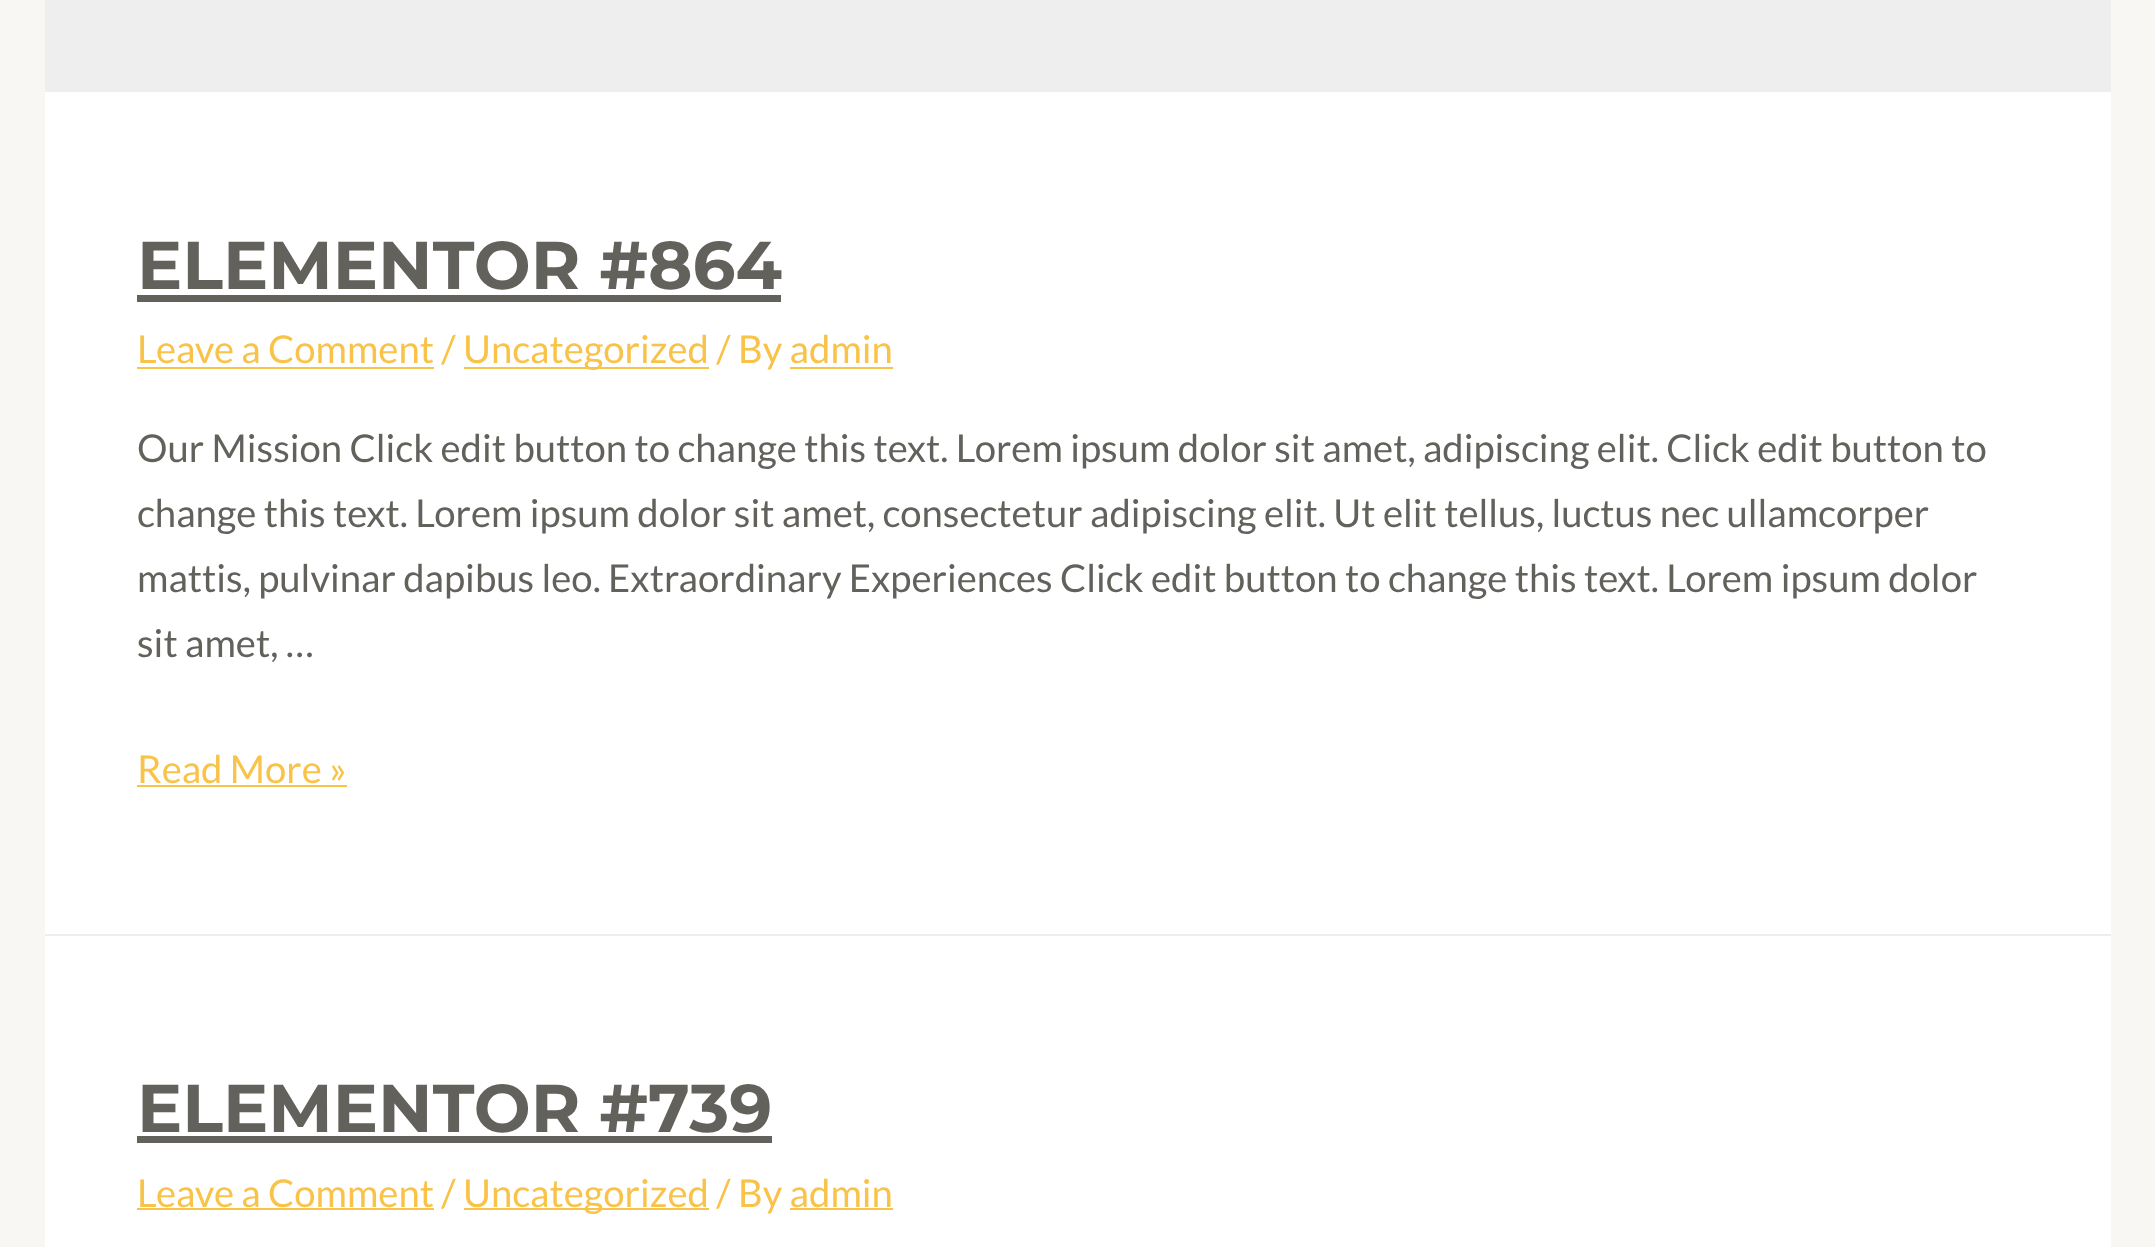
<!DOCTYPE html>
<meta charset="utf-8">
<style>body { margin: 0 } canvas { display: block }</style>
<canvas id="canvas" width="2155" height="1247"></canvas>
<script>
window.onload = function () {
    const canvas = document.getElementById('canvas');
    const context = canvas.getContext('2d');
    context.miterLimit = 4;
    context.fontKerning = 'normal';

    context.fillStyle = 'rgb(248, 247, 243)';
    context.fillRect(0, 0, 2155, 1247);
    context.fillStyle = 'rgb(238, 238, 238)';
    context.fillRect(45, 0, 2066, 92);
    context.fillStyle = 'rgb(255, 255, 255)';
    context.fillRect(45, 92, 2066, 842);
    context.fillStyle = 'rgb(238, 238, 238)';
    context.fillRect(45, 934, 2066, 2);
    context.fillStyle = 'rgb(98, 97, 92)';
    context.fillRect(137, 295, 644, 7);
    context.fillStyle = 'rgb(249, 195, 73)';
    context.fillRect(137, 367, 297, 2);
    context.fillRect(464, 367, 245, 2);
    context.fillRect(790, 367, 103, 2);
    context.fillRect(137, 785, 210, 2);
    context.fillStyle = 'rgb(255, 255, 255)';
    context.fillRect(45, 936, 2066, 311);
    context.fillStyle = 'rgb(98, 97, 92)';
    context.fillRect(137, 1136, 635, 7);
    context.fillStyle = 'rgb(249, 195, 73)';
    context.fillRect(137, 1208, 297, 2);
    context.fillRect(464, 1208, 245, 2);
    context.fillRect(790, 1208, 103, 2);
    context.font = '100 67.5px Montserrat';
    context.fillStyle = 'rgb(98, 97, 92)';
    context.fillText('ELEMENTOR #864', 137, 289);
    context.font = '38.25px Lato';
    context.fillStyle = 'rgb(249, 195, 73)';
    context.fillText('Leave a Comment /', 137, 363);
    context.fillText('Uncategorized / By admin', 463, 363);
    context.fillStyle = 'rgb(98, 97, 92)';
    context.fillText('Our Mission Click edit button to change this text. Lorem ipsum dolor sit amet, adipiscing elit. Click edit button to', 137, 462);
    context.fillText('change this text. Lorem ipsum dolor sit amet, consectetur adipiscing elit. Ut elit tellus, luctus nec ullamcorper', 137, 527);
    context.fillText('mattis, pulvinar dapibus leo. Extraordinary Experiences Click edit button to change this text. Lorem ipsum dolor', 137, 592);
    context.fillText('sit amet, …', 137, 657);
    context.fillStyle = 'rgb(249, 195, 73)';
    context.fillText('Read More »', 137, 783);
    context.font = '100 67.5px Montserrat';
    context.fillStyle = 'rgb(98, 97, 92)';
    context.fillText('ELEMENTOR #739', 137, 1132);
    context.font = '38.25px Lato';
    context.fillStyle = 'rgb(249, 195, 73)';
    context.fillText('Leave a Comment /', 137, 1207);
    context.fillText('Uncategorized / By admin', 463, 1207);
};
</script>
